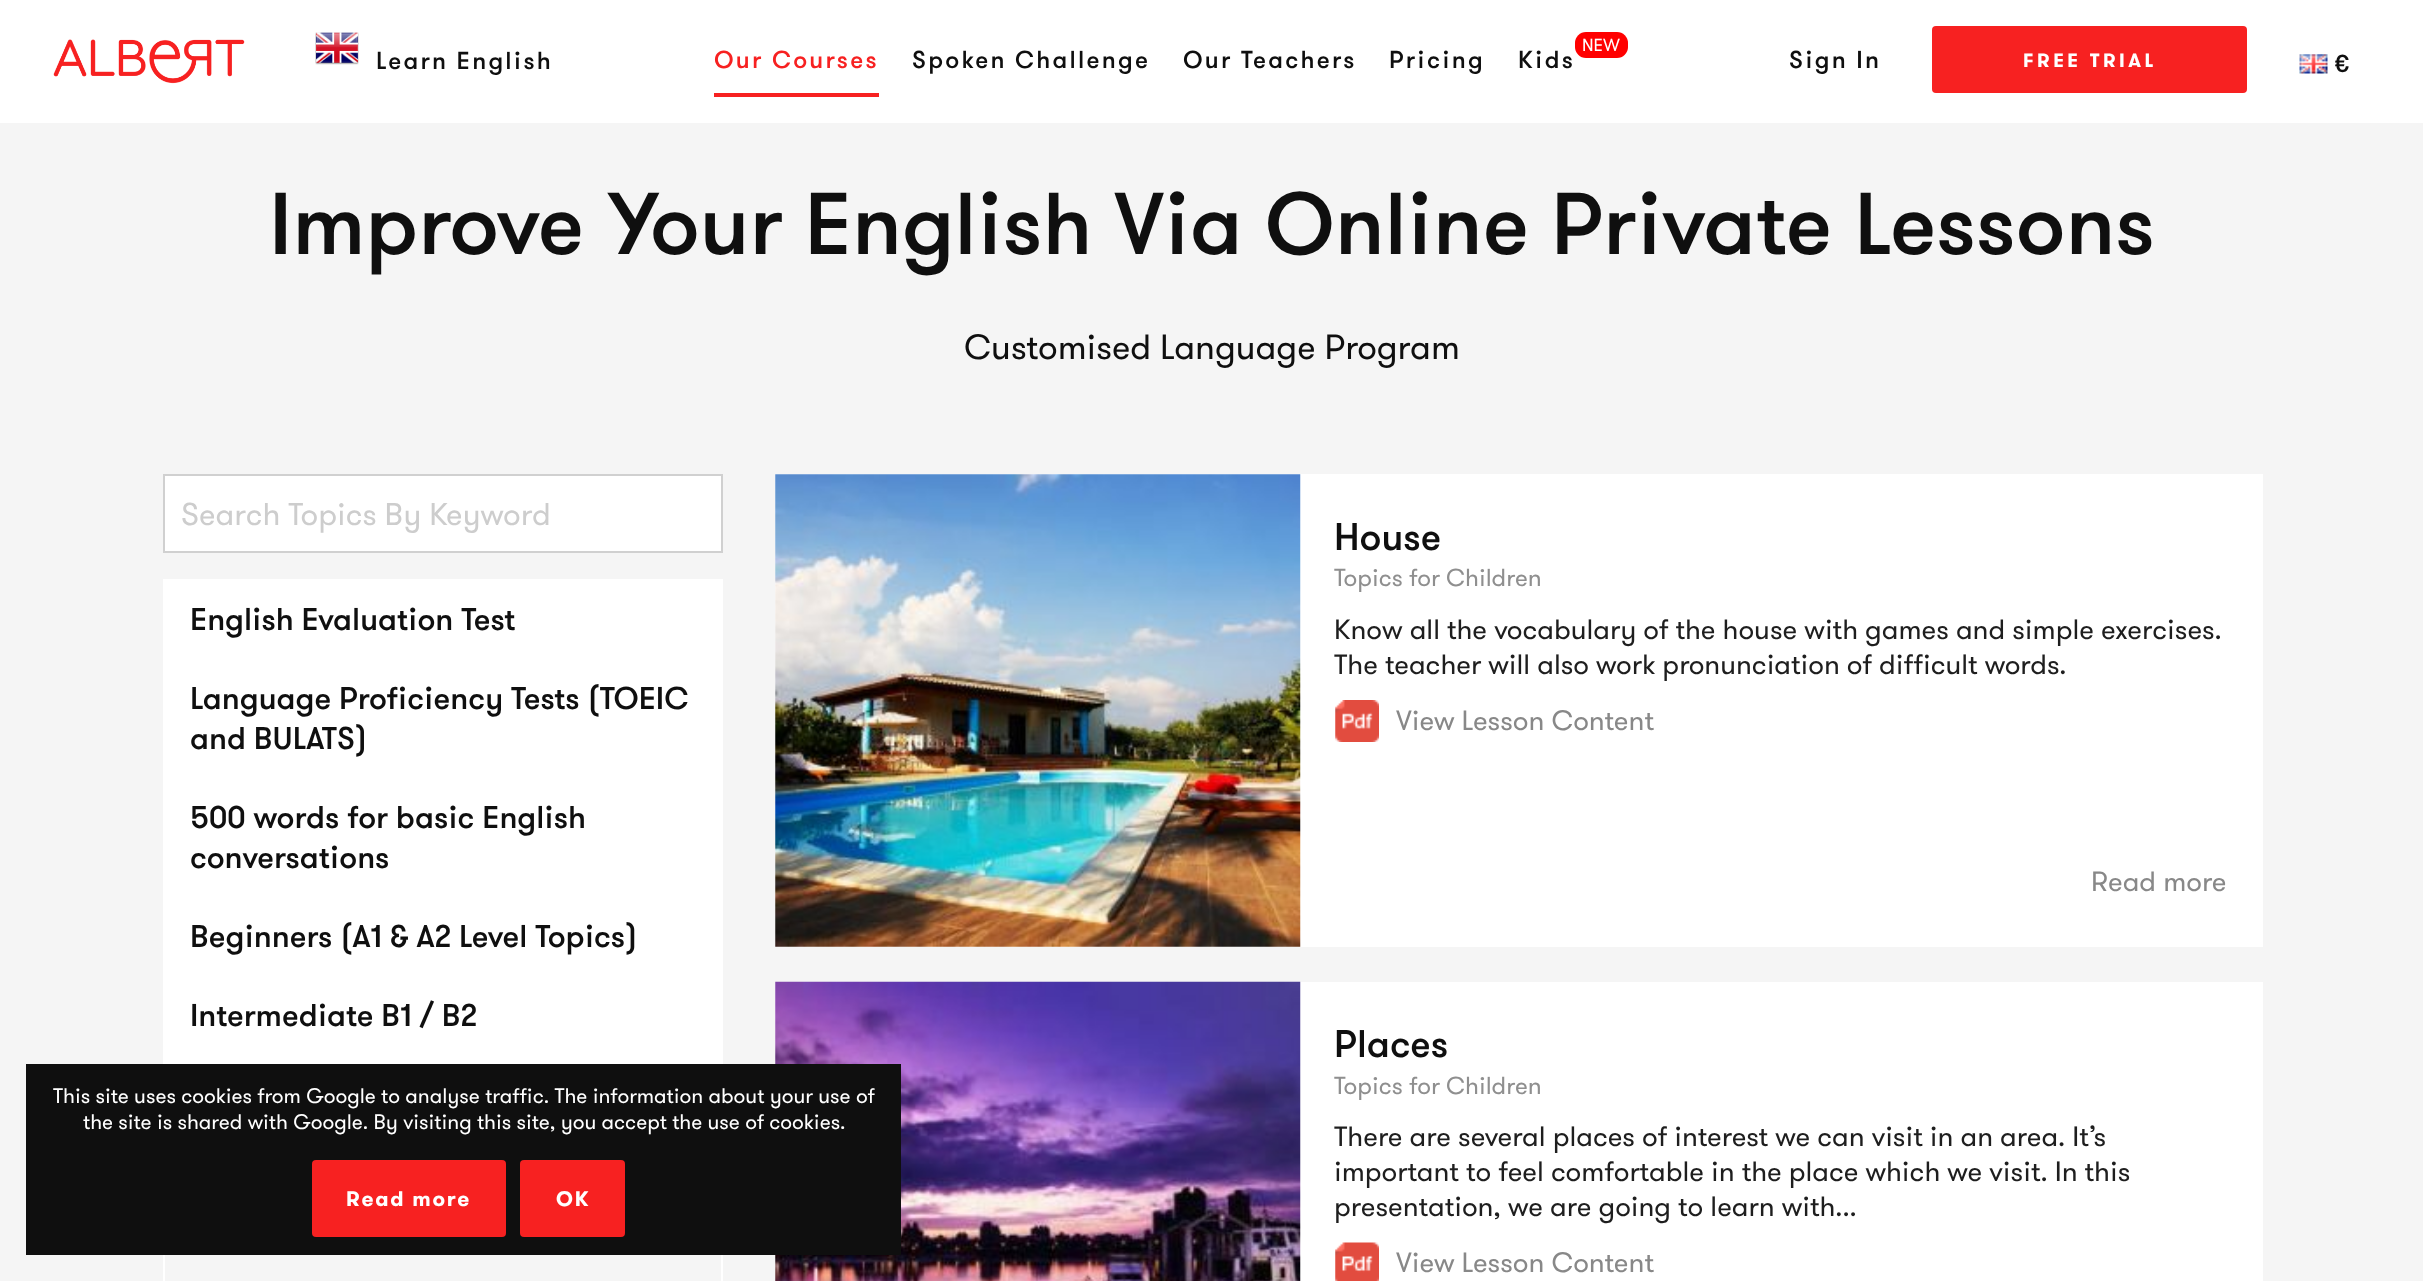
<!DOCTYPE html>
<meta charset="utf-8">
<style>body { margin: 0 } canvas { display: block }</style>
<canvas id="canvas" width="2423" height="1281"></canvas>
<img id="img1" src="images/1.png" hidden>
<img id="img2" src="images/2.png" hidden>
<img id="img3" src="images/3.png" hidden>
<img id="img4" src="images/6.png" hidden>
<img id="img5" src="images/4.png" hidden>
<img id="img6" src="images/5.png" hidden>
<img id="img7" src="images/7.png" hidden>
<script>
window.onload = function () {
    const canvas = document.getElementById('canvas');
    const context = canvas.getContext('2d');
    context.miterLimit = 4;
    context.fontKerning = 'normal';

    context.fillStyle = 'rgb(245, 245, 245)';
    context.fillRect(0, 0, 2423, 1281);
    context.fillStyle = 'rgb(255, 255, 255)';
    context.fillRect(0, 0, 2423, 123);
    context.drawImage(document.getElementById('img1'), 53, 39, 192, 45);
    context.drawImage(document.getElementById('img2'), 315, 32, 44, 33);
    context.fillStyle = 'rgb(247, 33, 33)';
    context.fillRect(714, 93, 165, 4);
    context.fillStyle = 'rgb(255, 0, 0)';
    context.beginPath();
    context.roundRect(1575, 32, 53, 26, 11);
    context.fill();
    context.fillStyle = 'rgb(247, 33, 33)';
    context.beginPath();
    context.roundRect(1932, 26, 315, 67, 4);
    context.fill();
    context.drawImage(document.getElementById('img3'), 2299, 54, 29, 20);
    context.fillStyle = 'rgb(255, 255, 255)';
    context.fillRect(775, 982, 1488, 299);
    context.drawImage(document.getElementById('img4'), 775, 981, 526, 300);
    context.fillStyle = 'rgb(15, 15, 15)';
    context.fillRect(26, 1064, 875, 191);
    context.fillStyle = 'rgb(247, 33, 33)';
    context.beginPath();
    context.roundRect(312, 1160, 194, 77, 4);
    context.fill();
    context.beginPath();
    context.roundRect(520, 1160, 105, 77, 4);
    context.fill();
    context.fillStyle = 'rgb(255, 255, 255)';
    context.beginPath();
    context.rect(164, 475, 558, 77);
    context.fill();
    context.strokeStyle = 'rgb(208, 208, 208)';
    context.lineWidth = 2;
    context.stroke();
    context.fillRect(163, 579, 560, 485);
    context.fillRect(721, 1255, 2, 26);
    context.fillRect(163, 1255, 2, 26);
    context.fillRect(775, 474, 1488, 473);
    context.drawImage(document.getElementById('img5'), 775, 474, 526, 473);
    context.drawImage(document.getElementById('img6'), 1335, 700, 44, 42);
    context.drawImage(document.getElementById('img7'), 1335, 1242, 44, 39);
    context.letterSpacing = '2.25px';
    context.font = '500 24.5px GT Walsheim';
    context.fillStyle = 'rgb(15, 15, 15)';
    context.fillText('Learn English', 376, 69);
    context.fillStyle = 'rgb(247, 33, 33)';
    context.fillText('Our Courses', 714, 68);
    context.fillStyle = 'rgb(15, 15, 15)';
    context.fillText('Spoken Challenge', 912, 68);
    context.fillText('Our Teachers', 1183, 68);
    context.fillText('Pricing', 1389, 68);
    context.letterSpacing = '0px';
    context.font = '17.5px GT Walsheim';
    context.fillStyle = 'rgb(255, 255, 255)';
    context.fillText('NEW', 1582, 51);
    context.letterSpacing = '2.25px';
    context.font = '500 24.5px GT Walsheim';
    context.fillStyle = 'rgb(15, 15, 15)';
    context.fillText('Kids', 1518, 68);
    context.fillText('Sign In', 1789, 68);
    context.letterSpacing = '3.5px';
    context.font = 'bold 19.25px GT Walsheim';
    context.fillStyle = 'rgb(255, 255, 255)';
    context.fillText('FREE TRIAL', 2023, 67);
    context.letterSpacing = '5px';
    context.font = '500 24.5px GT Walsheim';
    context.fillStyle = 'rgb(15, 15, 15)';
    context.fillText('€', 2335, 72);
    context.letterSpacing = '0px';
    context.font = '21px GT Walsheim';
    context.fillStyle = 'rgb(255, 255, 255)';
    context.fillText('This site uses cookies from Google to analyse traffic. The information about your use of', 53, 1103);
    context.fillText('the site is shared with Google. By visiting this site, you accept the use of cookies.', 83, 1129);
    context.letterSpacing = '1.75px';
    context.font = 'bold 21px GT Walsheim';
    context.fillText('Read more', 346, 1206);
    context.fillText('OK', 556, 1206);
    context.letterSpacing = '0px';
    context.font = '500 87.5px GT Walsheim';
    context.fillStyle = 'rgb(15, 15, 15)';
    context.fillText('Improve Your English Via Online Private Lessons', 269, 254);
    context.font = '35px GT Walsheim';
    context.fillText('Customised Language Program', 964, 359);
    context.font = '31.5px GT Walsheim';
    context.fillStyle = 'rgb(205, 205, 205)';
    context.fillText('Search Topics By Keyword', 181, 525);
    context.font = '500 31.5px GT Walsheim';
    context.fillStyle = 'rgb(15, 15, 15)';
    context.fillText('English Evaluation Test', 190, 630);
    context.fillText('Language Proficiency Tests (TOEIC', 190, 709);
    context.fillText('and BULATS)', 190, 749);
    context.fillText('500 words for basic English', 190, 828);
    context.fillText('conversations', 190, 868);
    context.fillText('Beginners (A1 & A2 Level Topics)', 190, 947);
    context.fillText('Intermediate B1 / B2', 190, 1026);
    context.font = '500 38.5px GT Walsheim';
    context.fillText('House', 1334, 550);
    context.font = '24.5px GT Walsheim';
    context.fillStyle = 'rgb(143, 143, 143)';
    context.fillText('Topics for Children', 1334, 586);
    context.font = '28px GT Walsheim';
    context.fillStyle = 'rgb(30, 30, 30)';
    context.fillText('Know all the vocabulary of the house with games and simple exercises.', 1334, 639);
    context.fillText('The teacher will also work pronunciation of difficult words.', 1334, 674);
    context.fillStyle = 'rgb(136, 136, 136)';
    context.fillText('View Lesson Content', 1396, 730);
    context.fillText('Read more', 2091, 891);
    context.font = '500 38.5px GT Walsheim';
    context.fillStyle = 'rgb(15, 15, 15)';
    context.fillText('Places', 1334, 1057);
    context.font = '24.5px GT Walsheim';
    context.fillStyle = 'rgb(143, 143, 143)';
    context.fillText('Topics for Children', 1334, 1094);
    context.font = '28px GT Walsheim';
    context.fillStyle = 'rgb(30, 30, 30)';
    context.fillText('There are several places of interest we can visit in an area. It’s', 1334, 1146);
    context.fillText('important to feel comfortable in the place which we visit. In this', 1334, 1181);
    context.fillText('presentation, we are going to learn with...', 1334, 1216);
    context.fillStyle = 'rgb(136, 136, 136)';
    context.fillText('View Lesson Content', 1396, 1272);
};
</script>
